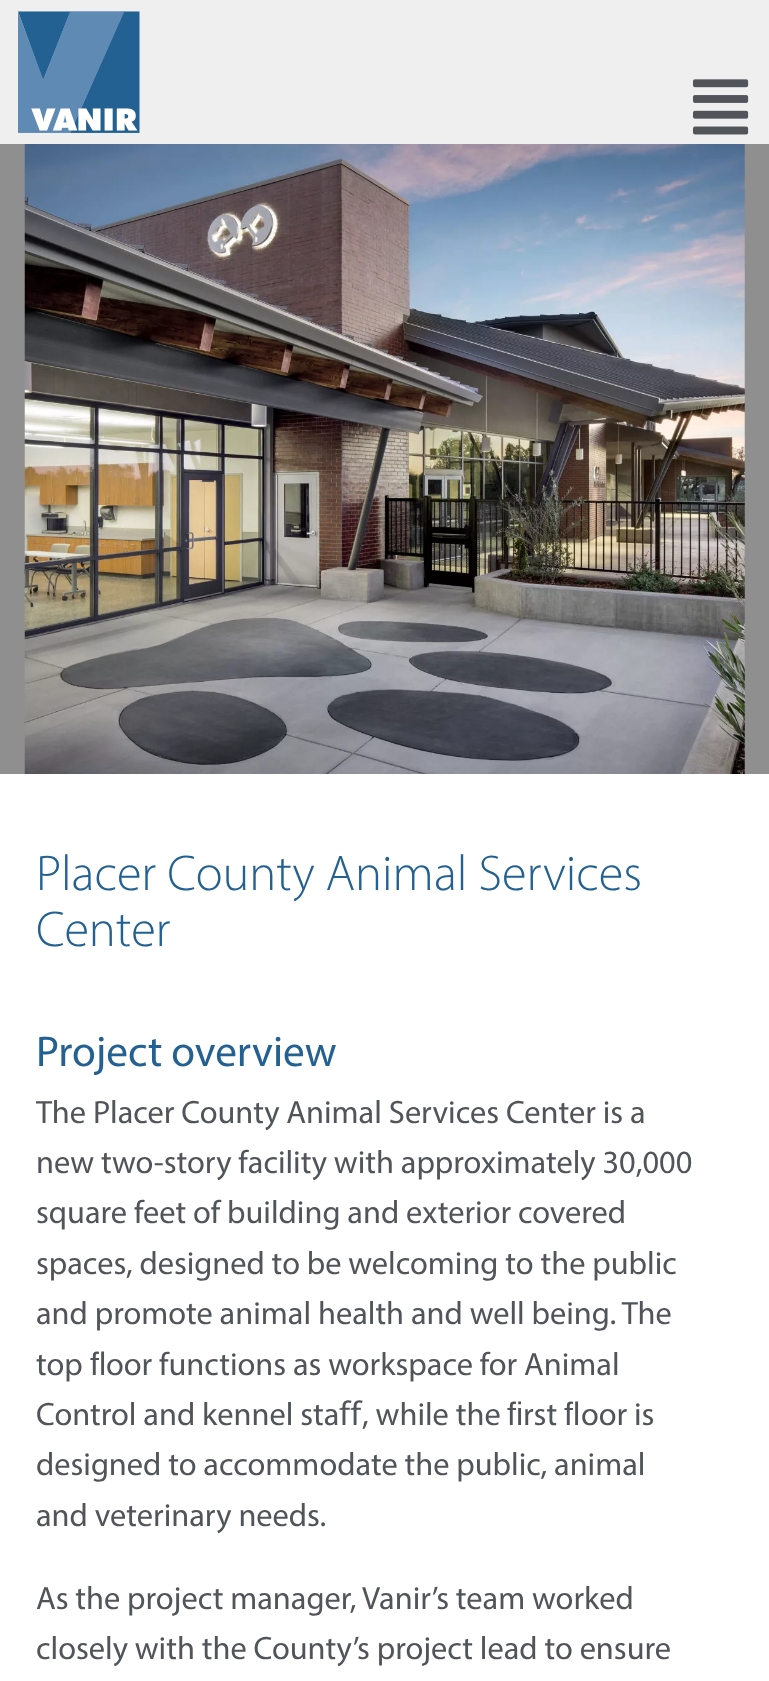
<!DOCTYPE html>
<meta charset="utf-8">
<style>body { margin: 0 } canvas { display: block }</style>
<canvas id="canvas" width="769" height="1681"></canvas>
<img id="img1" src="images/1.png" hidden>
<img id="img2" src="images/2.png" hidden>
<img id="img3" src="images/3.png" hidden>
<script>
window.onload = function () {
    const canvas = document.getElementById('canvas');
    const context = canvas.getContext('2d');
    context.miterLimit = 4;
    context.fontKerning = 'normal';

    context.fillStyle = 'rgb(255, 255, 255)';
    context.fillRect(0, 0, 769, 1681);
    context.fillStyle = 'rgb(239, 239, 239)';
    context.fillRect(0, 0, 769, 144);
    context.drawImage(document.getElementById('img1'), 18, 11, 122, 122);
    context.drawImage(document.getElementById('img2'), 693, 79, 56, 56);
    context.fillStyle = 'rgb(143, 143, 143)';
    context.fillRect(0, 144, 769, 630);
    context.drawImage(document.getElementById('img3'), 24, 144, 721, 630);
    context.font = '300 50.4px Myriad';
    context.fillStyle = 'rgb(35, 97, 146)';
    context.fillText('Placer County Animal Services', 36, 890);
    context.fillText('Center', 36, 946);
    context.font = '43.25px Myriad';
    context.fillText('Project overview', 36, 1066);
    context.font = '32.4px Myriad';
    context.fillStyle = 'rgb(81, 85, 89)';
    context.fillText('The Placer County Animal Services Center is a', 36, 1123);
    context.fillText('new two-story facility with approximately 30,000', 36, 1173);
    context.fillText('square feet of building and exterior covered', 36, 1223);
    context.fillText('spaces, designed to be welcoming to the public', 36, 1274);
    context.fillText('and promote animal health and well being. The', 36, 1324);
    context.fillText('top', 36, 1375);
    context.font = '32.4px Liberation Sans';
    context.fillText('ﬂ', 90, 1375);
    context.font = '32.4px Myriad';
    context.fillText('oor functions as workspace for Animal', 106, 1375);
    context.fillText('Control and kennel sta', 36, 1425);
    context.font = '32.4px Noto Sans';
    context.fillText('ﬀ', 339, 1425);
    context.font = '32.4px Myriad';
    context.fillText(', while the', 362, 1425);
    context.font = '32.4px Liberation Sans';
    context.fillText('ﬁ', 507, 1425);
    context.font = '32.4px Myriad';
    context.fillText('rst', 523, 1425);
    context.font = '32.4px Liberation Sans';
    context.fillText('ﬂ', 564, 1425);
    context.font = '32.4px Myriad';
    context.fillText('oor is', 581, 1425);
    context.fillText('designed to accommodate the public, animal', 36, 1475);
    context.fillText('and veterinary needs.', 36, 1526);
    context.fillText('As the project manager, Vanir’s team worked', 36, 1609);
    context.fillText('closely with the County’s project lead to ensure', 36, 1659);
};
</script>
